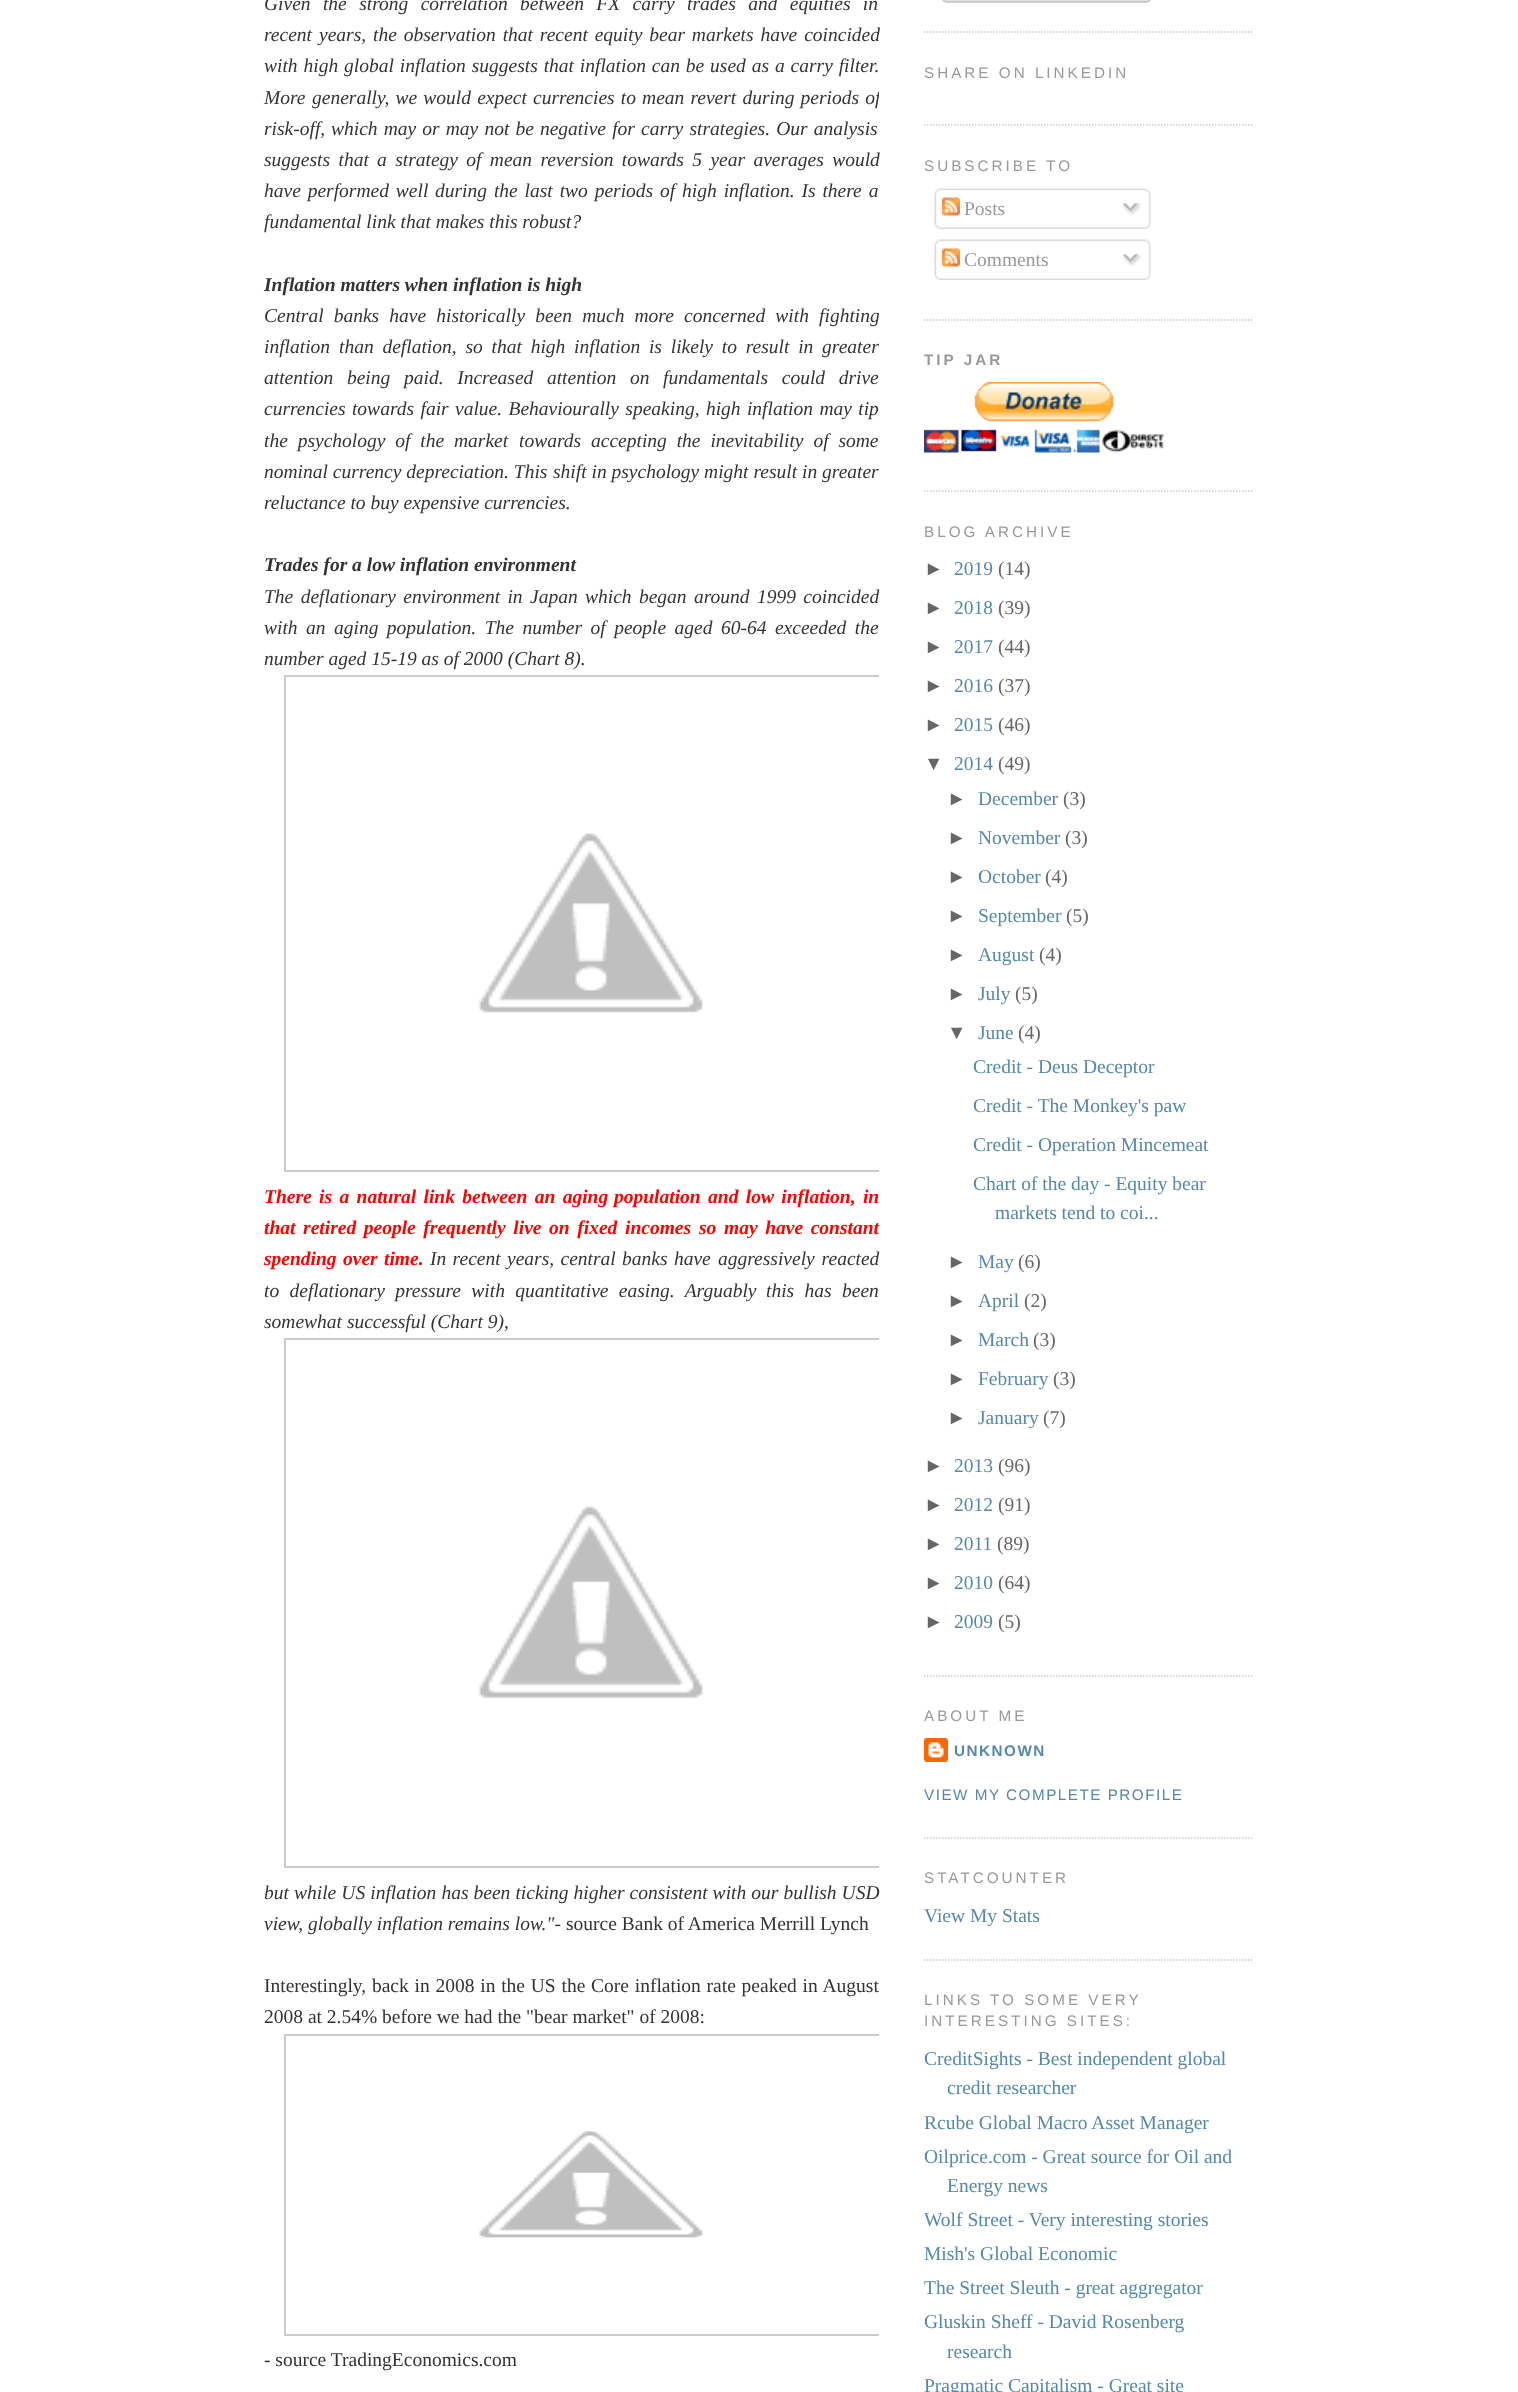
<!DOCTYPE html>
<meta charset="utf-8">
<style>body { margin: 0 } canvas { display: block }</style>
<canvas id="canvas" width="1518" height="2392"></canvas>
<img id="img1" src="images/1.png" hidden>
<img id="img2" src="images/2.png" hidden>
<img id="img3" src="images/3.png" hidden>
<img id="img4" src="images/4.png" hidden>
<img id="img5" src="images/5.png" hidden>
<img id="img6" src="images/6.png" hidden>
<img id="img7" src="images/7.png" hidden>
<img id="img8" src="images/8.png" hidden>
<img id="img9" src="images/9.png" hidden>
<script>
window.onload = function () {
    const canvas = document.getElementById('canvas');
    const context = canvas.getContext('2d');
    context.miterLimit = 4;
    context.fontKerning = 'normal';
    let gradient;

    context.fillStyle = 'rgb(255, 255, 255)';
    context.fillRect(0, 0, 1518, 2392);
    context.save();
    context.beginPath();
    context.rect(264, 0, 615, 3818);
    context.clip();
    context.strokeStyle = 'rgb(204, 204, 204)';
    context.lineWidth = 2;
    context.strokeRect(285, 676, 613, 495);
    context.restore();
    context.drawImage(document.getElementById('img1'), 479, 833, 224, 180);
    context.save();
    context.beginPath();
    context.rect(264, 0, 615, 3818);
    context.clip();
    context.strokeStyle = 'rgb(204, 204, 204)';
    context.lineWidth = 2;
    context.strokeRect(285, 1339, 613, 528);
    context.restore();
    context.drawImage(document.getElementById('img2'), 479, 1506, 224, 193);
    context.save();
    context.beginPath();
    context.rect(264, 0, 615, 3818);
    context.clip();
    context.strokeStyle = 'rgb(204, 204, 204)';
    context.lineWidth = 2;
    context.strokeRect(285, 2035, 613, 300);
    context.restore();
    context.drawImage(document.getElementById('img3'), 479, 2131, 224, 107);
    context.beginPath();
    context.moveTo(924, 32);
    context.lineTo(1254, 32);
    context.strokeStyle = 'rgb(204, 204, 204)';
    context.lineWidth = 1.5;
    context.setLineDash([1.5, 1.5]);
    context.stroke();
    context.save();
    context.beginPath();
    context.roundRect(942, -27, 209, 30, 5);
    context.clip();
    gradient = context.createLinearGradient(944, -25, 944, 1.5);
    gradient.addColorStop(0, 'rgb(255, 255, 255)');
    gradient.addColorStop(1, 'rgb(222, 222, 222)');
    context.fillStyle = gradient;
    context.fillRect(942, 0, 209, 2);
    context.restore();
    context.beginPath();
    context.roundRect(943, -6, 207, 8, 4);
    context.lineWidth = 2;
    context.setLineDash([]);
    context.stroke();
    context.beginPath();
    context.moveTo(924, 125);
    context.lineTo(1254, 125);
    context.lineWidth = 1.5;
    context.setLineDash([1.5, 1.5]);
    context.stroke();
    context.beginPath();
    context.moveTo(924, 320);
    context.lineTo(1254, 320);
    context.stroke();
    context.drawImage(document.getElementById('img4'), 934, 188, 217, 37);
    context.drawImage(document.getElementById('img5'), 942, 197, 18, 19);
    context.drawImage(document.getElementById('img6'), 1122, 202, 20, 14);
    context.drawImage(document.getElementById('img7'), 934, 224, 217, 5);
    context.drawImage(document.getElementById('img4'), 934, 239, 217, 37);
    context.drawImage(document.getElementById('img5'), 942, 248, 18, 19);
    context.drawImage(document.getElementById('img6'), 1122, 253, 20, 14);
    context.drawImage(document.getElementById('img7'), 934, 275, 217, 5);
    context.beginPath();
    context.moveTo(924, 491);
    context.lineTo(1254, 491);
    context.stroke();
    context.drawImage(document.getElementById('img8'), 924, 382, 240, 71);
    context.beginPath();
    context.moveTo(924, 1676);
    context.lineTo(1254, 1676);
    context.stroke();
    context.beginPath();
    context.moveTo(924, 1838);
    context.lineTo(1254, 1838);
    context.stroke();
    context.drawImage(document.getElementById('img9'), 924, 1738, 24, 24);
    context.beginPath();
    context.moveTo(924, 1960);
    context.lineTo(1254, 1960);
    context.stroke();
    context.wordSpacing = '7.5px';
    context.font = 'italic 19.5px Liberation Serif';
    context.fillStyle = 'rgb(51, 51, 51)';
    context.fillText('Given the strong correlation between FX carry trades and equities in', 264, 10);
    context.wordSpacing = '0px';
    context.fillText('recent', 264, 41);
    context.wordSpacing = '2px';
    context.fillText('years, the observation that recent equity bear markets have coincided', 319, 41);
    context.wordSpacing = '1px';
    context.fillText('with high', 264, 72);
    context.fillText('global inflation suggests that inflation can be used as a carry filter.', 344, 72);
    context.wordSpacing = '0px';
    context.fillText('More', 264, 104);
    context.save();
    context.beginPath();
    context.rect(264, 0, 615, 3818);
    context.clip();
    context.wordSpacing = '1.25px';
    context.fillText('generally, we would expect currencies to mean revert during periods of', 312, 104);
    context.restore();
    context.fillText('risk-off,', 264, 135);
    context.wordSpacing = '1.25px';
    context.fillText('which may or may not be negative for carry strategies. Our analysis', 331, 135);
    context.wordSpacing = '3.5px';
    context.fillText('suggests that', 264, 166);
    context.fillText('a strategy of mean reversion towards 5 year averages would', 377, 166);
    context.wordSpacing = '2px';
    context.fillText('have performed well', 264, 197);
    context.fillText('during the last two periods of high inflation. Is there a', 435, 197);
    context.wordSpacing = '0px';
    context.fillText('fundamental link that makes this robust?', 264, 228);
    context.font = 'italic bold 19.5px Liberation Serif';
    context.fillText('Inflation matters when inflation is high', 264, 291);
    context.wordSpacing = '5.25px';
    context.font = 'italic 19.5px Liberation Serif';
    context.fillText('Central banks have historically been much more concerned with fighting', 264, 322);
    context.wordSpacing = '0px';
    context.fillText('inflation', 264, 353);
    context.wordSpacing = '3.9px';
    context.fillText('than deflation, so that high inflation is likely to result in greater', 339, 353);
    context.wordSpacing = '8.75px';
    context.fillText('attention being', 264, 384);
    context.fillText('paid. Increased attention on fundamentals could drive', 404, 384);
    context.wordSpacing = '1.5px';
    context.fillText('currencies towards fair', 264, 415);
    context.fillText('value. Behaviourally speaking, high inflation may tip', 455, 415);
    context.wordSpacing = '5px';
    context.fillText('the psychology of the market', 264, 447);
    context.fillText('towards accepting the inevitability of some', 519, 447);
    context.wordSpacing = '0px';
    context.fillText('nominal currency depreciation. This', 264, 478);
    context.fillText('shift in psychology might result in greater', 553, 478);
    context.fillText('reluctance to buy expensive currencies.', 264, 509);
    context.font = 'italic bold 19.5px Liberation Serif';
    context.fillText('Trades for a low inflation environment', 264, 571);
    context.wordSpacing = '2.5px';
    context.font = 'italic 19.5px Liberation Serif';
    context.fillText('The deflationary environment in Japan which began around 1999 coincided', 264, 603);
    context.wordSpacing = '0px';
    context.fillText('with', 264, 634);
    context.wordSpacing = '3.6px';
    context.fillText('an aging population. The number of people aged 60-64 exceeded the', 306, 634);
    context.wordSpacing = '0px';
    context.fillText('number aged 15-19 as of 2000 (Chart 8).', 264, 665);
    context.wordSpacing = '2.5px';
    context.font = 'italic bold 19.5px Liberation Serif';
    context.fillStyle = 'rgb(255, 0, 0)';
    context.fillText('There is a natural link between an aging', 264, 1203);
    context.fillText('population and low inflation, in', 614, 1203);
    context.wordSpacing = '2.75px';
    context.fillText('that retired people frequently live on fixed incomes', 264, 1234);
    context.fillText('so may have constant', 699, 1234);
    context.wordSpacing = '1.5px';
    context.fillText('spending over time.', 264, 1265);
    context.font = 'italic 19.5px Liberation Serif';
    context.fillStyle = 'rgb(51, 51, 51)';
    context.fillText('In recent years, central banks have', 430, 1265);
    context.wordSpacing = '2px';
    context.fillText('aggressively reacted', 718, 1265);
    context.wordSpacing = '5.5px';
    context.fillText('to deflationary pressure with quantitative easing. Arguably', 264, 1297);
    context.fillText('this has been', 766, 1297);
    context.wordSpacing = '0px';
    context.fillText('somewhat successful (Chart 9),', 264, 1328);
    context.wordSpacing = '0.2px';
    context.fillText('but while US inflation has been ticking higher consistent with our bullish USD', 264, 1899);
    context.wordSpacing = '0px';
    context.fillText('view, globally inflation remains low."-', 264, 1930);
    context.font = '19.5px Liberation Serif';
    context.fillText('source Bank of America Merrill Lynch', 566, 1930);
    context.wordSpacing = '0.9px';
    context.fillText('Interestingly, back in 2008 in the US the Core inflation rate peaked in August', 264, 1992);
    context.wordSpacing = '0px';
    context.fillText('2008 at 2.54% before we had the "bear market" of 2008:', 264, 2023);
    context.fillText('- source TradingEconomics.com', 264, 2366);
    context.letterSpacing = '3px';
    context.font = '15.25px Liberation Sans';
    context.fillStyle = 'rgb(153, 153, 153)';
    context.fillText('SHARE ON LINKEDIN', 924, 78);
    context.fillText('SUBSCRIBE TO', 924, 171);
    context.letterSpacing = '0px';
    context.font = '19.5px Liberation Serif';
    context.fillText('Posts', 964, 215);
    context.fillText('Comments', 964, 266);
    context.letterSpacing = '3px';
    context.font = 'bold 15.25px Liberation Sans';
    context.fillText('TIP JAR', 924, 365);
    context.font = '15.25px Liberation Sans';
    context.fillText('BLOG ARCHIVE', 924, 537);
    context.letterSpacing = '0px';
    context.font = '19.5px Liberation Sans';
    context.fillStyle = 'rgb(102, 102, 102)';
    context.fillText('►', 924, 575);
    context.font = '19.5px Liberation Serif';
    context.fillStyle = 'rgb(85, 136, 170)';
    context.fillText('2019', 954, 575);
    context.fillStyle = 'rgb(102, 102, 102)';
    context.fillText('(14)', 998, 575);
    context.font = '19.5px Liberation Sans';
    context.fillText('►', 924, 614);
    context.font = '19.5px Liberation Serif';
    context.fillStyle = 'rgb(85, 136, 170)';
    context.fillText('2018', 954, 614);
    context.fillStyle = 'rgb(102, 102, 102)';
    context.fillText('(39)', 998, 614);
    context.font = '19.5px Liberation Sans';
    context.fillText('►', 924, 653);
    context.font = '19.5px Liberation Serif';
    context.fillStyle = 'rgb(85, 136, 170)';
    context.fillText('2017', 954, 653);
    context.fillStyle = 'rgb(102, 102, 102)';
    context.fillText('(44)', 998, 653);
    context.font = '19.5px Liberation Sans';
    context.fillText('►', 924, 692);
    context.font = '19.5px Liberation Serif';
    context.fillStyle = 'rgb(85, 136, 170)';
    context.fillText('2016', 954, 692);
    context.fillStyle = 'rgb(102, 102, 102)';
    context.fillText('(37)', 998, 692);
    context.font = '19.5px Liberation Sans';
    context.fillText('►', 924, 731);
    context.font = '19.5px Liberation Serif';
    context.fillStyle = 'rgb(85, 136, 170)';
    context.fillText('2015', 954, 731);
    context.fillStyle = 'rgb(102, 102, 102)';
    context.fillText('(46)', 998, 731);
    context.font = '19.5px Liberation Sans';
    context.fillText('▼', 924, 770);
    context.font = '19.5px Liberation Serif';
    context.fillStyle = 'rgb(85, 136, 170)';
    context.fillText('2014', 954, 770);
    context.fillStyle = 'rgb(102, 102, 102)';
    context.fillText('(49)', 998, 770);
    context.font = '19.5px Liberation Sans';
    context.fillText('►', 947, 805);
    context.font = '19.5px Liberation Serif';
    context.fillStyle = 'rgb(85, 136, 170)';
    context.fillText('December', 978, 805);
    context.fillStyle = 'rgb(102, 102, 102)';
    context.fillText('(3)', 1063, 805);
    context.font = '19.5px Liberation Sans';
    context.fillText('►', 947, 844);
    context.font = '19.5px Liberation Serif';
    context.fillStyle = 'rgb(85, 136, 170)';
    context.fillText('November', 978, 844);
    context.fillStyle = 'rgb(102, 102, 102)';
    context.fillText('(3)', 1065, 844);
    context.font = '19.5px Liberation Sans';
    context.fillText('►', 947, 883);
    context.font = '19.5px Liberation Serif';
    context.fillStyle = 'rgb(85, 136, 170)';
    context.fillText('October', 978, 883);
    context.fillStyle = 'rgb(102, 102, 102)';
    context.fillText('(4)', 1045, 883);
    context.font = '19.5px Liberation Sans';
    context.fillText('►', 947, 922);
    context.font = '19.5px Liberation Serif';
    context.fillStyle = 'rgb(85, 136, 170)';
    context.fillText('September', 978, 922);
    context.fillStyle = 'rgb(102, 102, 102)';
    context.fillText('(5)', 1066, 922);
    context.font = '19.5px Liberation Sans';
    context.fillText('►', 947, 961);
    context.font = '19.5px Liberation Serif';
    context.fillStyle = 'rgb(85, 136, 170)';
    context.fillText('August', 978, 961);
    context.fillStyle = 'rgb(102, 102, 102)';
    context.fillText('(4)', 1039, 961);
    context.font = '19.5px Liberation Sans';
    context.fillText('►', 947, 1000);
    context.font = '19.5px Liberation Serif';
    context.fillStyle = 'rgb(85, 136, 170)';
    context.fillText('July', 978, 1000);
    context.fillStyle = 'rgb(102, 102, 102)';
    context.fillText('(5)', 1015, 1000);
    context.font = '19.5px Liberation Sans';
    context.fillText('▼', 947, 1039);
    context.font = '19.5px Liberation Serif';
    context.fillStyle = 'rgb(85, 136, 170)';
    context.fillText('June', 978, 1039);
    context.fillStyle = 'rgb(102, 102, 102)';
    context.fillText('(4)', 1018, 1039);
    context.fillStyle = 'rgb(85, 136, 170)';
    context.fillText('Credit - Deus Deceptor', 973, 1073);
    context.fillText('Credit - The Monkey\'s paw', 973, 1112);
    context.fillText('Credit - Operation Mincemeat', 973, 1151);
    context.fillText('Chart of the day - Equity bear', 973, 1190);
    context.fillText('markets tend to coi...', 995, 1219);
    context.font = '19.5px Liberation Sans';
    context.fillStyle = 'rgb(102, 102, 102)';
    context.fillText('►', 947, 1268);
    context.font = '19.5px Liberation Serif';
    context.fillStyle = 'rgb(85, 136, 170)';
    context.fillText('May', 978, 1268);
    context.fillStyle = 'rgb(102, 102, 102)';
    context.fillText('(6)', 1018, 1268);
    context.font = '19.5px Liberation Sans';
    context.fillText('►', 947, 1307);
    context.font = '19.5px Liberation Serif';
    context.fillStyle = 'rgb(85, 136, 170)';
    context.fillText('April', 978, 1307);
    context.fillStyle = 'rgb(102, 102, 102)';
    context.fillText('(2)', 1024, 1307);
    context.font = '19.5px Liberation Sans';
    context.fillText('►', 947, 1346);
    context.font = '19.5px Liberation Serif';
    context.fillStyle = 'rgb(85, 136, 170)';
    context.fillText('March', 978, 1346);
    context.fillStyle = 'rgb(102, 102, 102)';
    context.fillText('(3)', 1033, 1346);
    context.font = '19.5px Liberation Sans';
    context.fillText('►', 947, 1385);
    context.font = '19.5px Liberation Serif';
    context.fillStyle = 'rgb(85, 136, 170)';
    context.fillText('February', 978, 1385);
    context.fillStyle = 'rgb(102, 102, 102)';
    context.fillText('(3)', 1053, 1385);
    context.font = '19.5px Liberation Sans';
    context.fillText('►', 947, 1424);
    context.font = '19.5px Liberation Serif';
    context.fillStyle = 'rgb(85, 136, 170)';
    context.fillText('January', 978, 1424);
    context.fillStyle = 'rgb(102, 102, 102)';
    context.fillText('(7)', 1043, 1424);
    context.font = '19.5px Liberation Sans';
    context.fillText('►', 924, 1472);
    context.font = '19.5px Liberation Serif';
    context.fillStyle = 'rgb(85, 136, 170)';
    context.fillText('2013', 954, 1472);
    context.fillStyle = 'rgb(102, 102, 102)';
    context.fillText('(96)', 998, 1472);
    context.font = '19.5px Liberation Sans';
    context.fillText('►', 924, 1511);
    context.font = '19.5px Liberation Serif';
    context.fillStyle = 'rgb(85, 136, 170)';
    context.fillText('2012', 954, 1511);
    context.fillStyle = 'rgb(102, 102, 102)';
    context.fillText('(91)', 998, 1511);
    context.font = '19.5px Liberation Sans';
    context.fillText('►', 924, 1550);
    context.font = '19.5px Liberation Serif';
    context.fillStyle = 'rgb(85, 136, 170)';
    context.fillText('2011', 954, 1550);
    context.fillStyle = 'rgb(102, 102, 102)';
    context.fillText('(89)', 997, 1550);
    context.font = '19.5px Liberation Sans';
    context.fillText('►', 924, 1589);
    context.font = '19.5px Liberation Serif';
    context.fillStyle = 'rgb(85, 136, 170)';
    context.fillText('2010', 954, 1589);
    context.fillStyle = 'rgb(102, 102, 102)';
    context.fillText('(64)', 998, 1589);
    context.font = '19.5px Liberation Sans';
    context.fillText('►', 924, 1628);
    context.font = '19.5px Liberation Serif';
    context.fillStyle = 'rgb(85, 136, 170)';
    context.fillText('2009', 954, 1628);
    context.fillStyle = 'rgb(102, 102, 102)';
    context.fillText('(5)', 998, 1628);
    context.letterSpacing = '3px';
    context.font = '15.25px Liberation Sans';
    context.fillStyle = 'rgb(153, 153, 153)';
    context.fillText('ABOUT ME', 924, 1721);
    context.letterSpacing = '1.5px';
    context.font = 'bold 15.25px Liberation Sans';
    context.fillStyle = 'rgb(85, 136, 170)';
    context.fillText('UNKNOWN', 954, 1756);
    context.font = '15.25px Liberation Sans';
    context.fillText('VIEW MY COMPLETE PROFILE', 924, 1800);
    context.letterSpacing = '3px';
    context.fillStyle = 'rgb(153, 153, 153)';
    context.fillText('STATCOUNTER', 924, 1883);
    context.letterSpacing = '0px';
    context.font = '19.5px Liberation Serif';
    context.fillStyle = 'rgb(85, 136, 170)';
    context.fillText('View My Stats', 924, 1922);
    context.letterSpacing = '3px';
    context.font = '15.25px Liberation Sans';
    context.fillStyle = 'rgb(153, 153, 153)';
    context.fillText('LINKS TO SOME VERY', 924, 2005);
    context.fillText('INTERESTING SITES:', 924, 2026);
    context.letterSpacing = '0px';
    context.font = '19.5px Liberation Serif';
    context.fillStyle = 'rgb(85, 136, 170)';
    context.fillText('CreditSights - Best independent global', 924, 2065);
    context.fillText('credit researcher', 947, 2094);
    context.fillText('Rcube Global Macro Asset Manager', 924, 2129);
    context.fillText('Oilprice.com - Great source for Oil and', 924, 2163);
    context.fillText('Energy news', 947, 2192);
    context.fillText('Wolf Street - Very interesting stories', 924, 2226);
    context.fillText('Mish\'s Global Economic', 924, 2260);
    context.fillText('The Street Sleuth - great aggregator', 924, 2294);
    context.fillText('Gluskin Sheff - David Rosenberg', 924, 2328);
    context.fillText('research', 947, 2358);
    context.fillText('Pragmatic Capitalism - Great site', 924, 2392);
};
</script>
